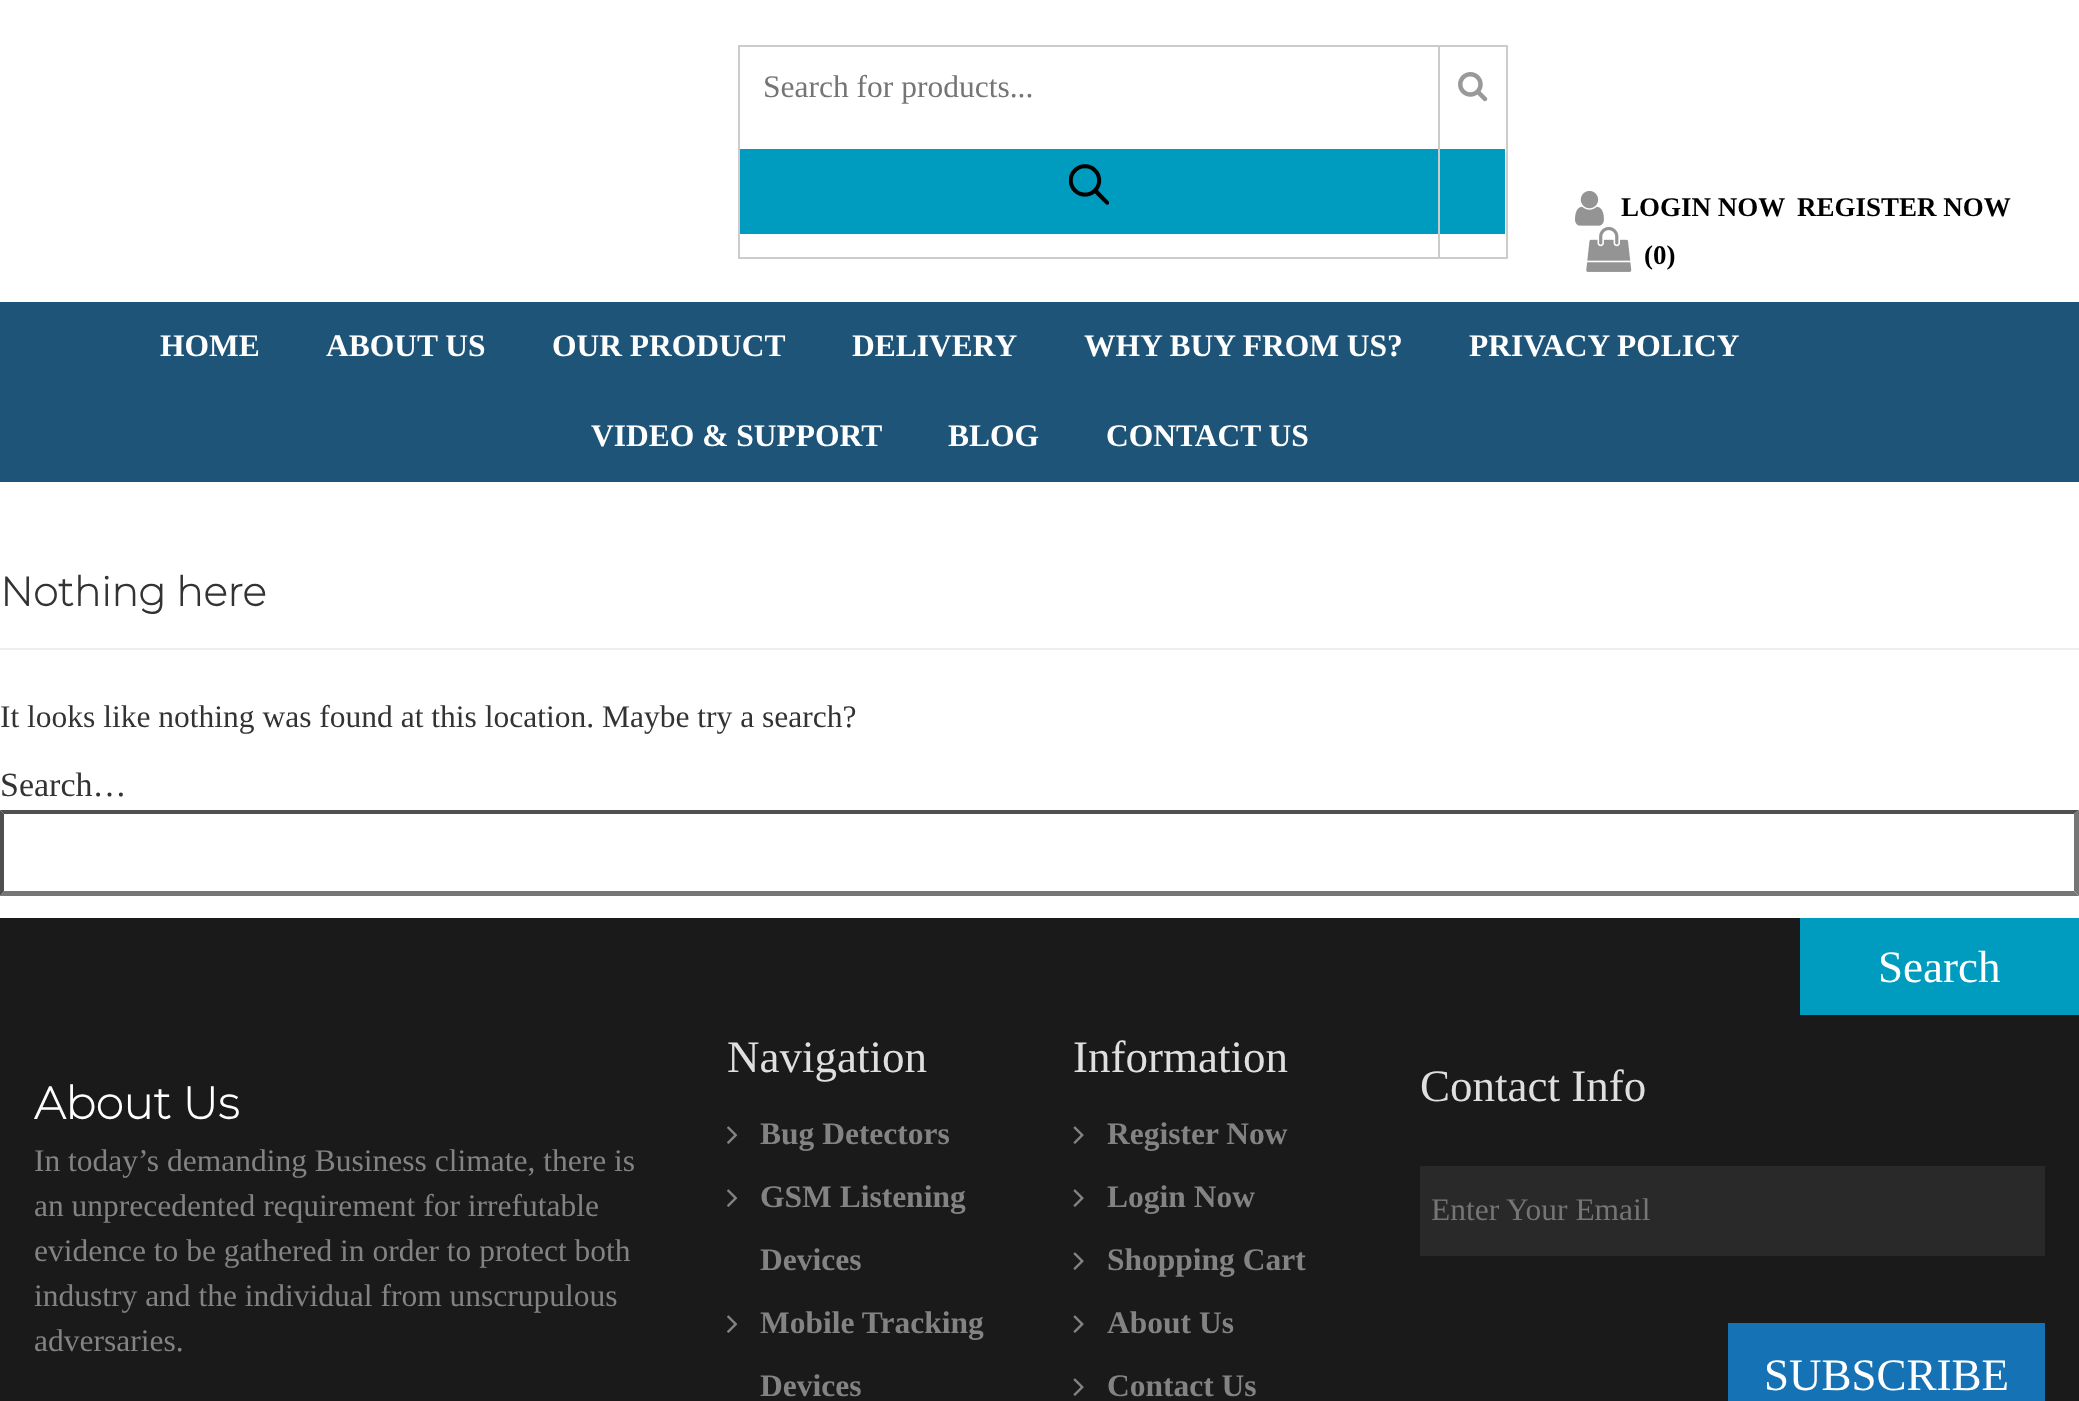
<!DOCTYPE html>
<meta charset="utf-8">
<style>body { margin: 0 } canvas { display: block }</style>
<canvas id="canvas" width="2079" height="1401"></canvas>
<img id="img1" src="images/1.png" hidden>
<img id="img2" src="images/2.png" hidden>
<img id="img3" src="images/3.png" hidden>
<img id="img4" src="images/4.png" hidden>
<img id="img5" src="images/5.png" hidden>
<img id="img6" src="images/6.png" hidden>
<script>
window.onload = function () {
    const canvas = document.getElementById('canvas');
    const context = canvas.getContext('2d');
    context.miterLimit = 4;
    context.fontKerning = 'normal';

    context.fillStyle = 'rgb(255, 255, 255)';
    context.fillRect(0, 0, 2079, 1401);
    context.strokeStyle = 'rgb(204, 204, 204)';
    context.lineWidth = 2;
    context.strokeRect(739, 46, 768, 212);
    context.fillStyle = 'rgb(0, 156, 191)';
    context.fillRect(740, 149, 765, 85);
    context.drawImage(document.getElementById('img1'), 1069, 164, 40, 41);
    context.fillStyle = 'rgb(204, 204, 204)';
    context.fillRect(1438, 47, 2, 210);
    context.drawImage(document.getElementById('img2'), 1458, 72, 30, 30);
    context.drawImage(document.getElementById('img3'), 1575, 190, 29, 36);
    context.drawImage(document.getElementById('img4'), 1586, 227, 46, 45);
    context.fillStyle = 'rgb(30, 84, 120)';
    context.fillRect(0, 302, 2079, 180);
    context.fillStyle = 'rgb(238, 238, 238)';
    context.fillRect(0, 648, 2079, 2);
    context.fillStyle = 'rgb(79, 79, 79)';
    context.beginPath();
    context.moveTo(0, 810);
    context.lineTo(2079, 810);
    context.lineTo(2074, 814);
    context.lineTo(4, 814);
    context.closePath();
    context.fill();
    context.fillStyle = 'rgb(118, 118, 118)';
    context.beginPath();
    context.moveTo(2079, 810);
    context.lineTo(2079, 896);
    context.lineTo(2074, 891);
    context.lineTo(2074, 814);
    context.closePath();
    context.fill();
    context.beginPath();
    context.moveTo(2079, 896);
    context.lineTo(0, 896);
    context.lineTo(4, 891);
    context.lineTo(2074, 891);
    context.closePath();
    context.fill();
    context.fillStyle = 'rgb(79, 79, 79)';
    context.beginPath();
    context.moveTo(0, 896);
    context.lineTo(0, 810);
    context.lineTo(4, 814);
    context.lineTo(4, 891);
    context.closePath();
    context.fill();
    context.fillStyle = 'rgb(26, 26, 26)';
    context.fillRect(0, 918, 2079, 483);
    context.fillStyle = 'rgb(0, 156, 191)';
    context.fillRect(1800, 918, 279, 97);
    context.drawImage(document.getElementById('img5'), 727, 1126, 11, 18);
    context.drawImage(document.getElementById('img5'), 727, 1189, 11, 18);
    context.drawImage(document.getElementById('img5'), 727, 1315, 11, 18);
    context.drawImage(document.getElementById('img6'), 1073, 1126, 11, 18);
    context.drawImage(document.getElementById('img6'), 1073, 1189, 11, 18);
    context.drawImage(document.getElementById('img6'), 1073, 1252, 11, 18);
    context.drawImage(document.getElementById('img6'), 1073, 1315, 11, 18);
    context.drawImage(document.getElementById('img6'), 1073, 1378, 11, 18);
    context.fillStyle = 'rgb(41, 41, 41)';
    context.fillRect(1420, 1166, 625, 90);
    context.fillStyle = 'rgb(21, 115, 181)';
    context.fillRect(1728, 1323, 317, 78);
    context.font = '31.5px Liberation Serif';
    context.fillStyle = 'rgb(117, 117, 117)';
    context.fillText('Search for products...', 763, 97);
    context.font = 'bold 27px Liberation Serif';
    context.fillStyle = 'rgb(0, 0, 0)';
    context.fillText('LOGIN NOW', 1621, 216);
    context.fillText('REGISTER NOW', 1797, 216);
    context.fillText('(0)', 1644, 264);
    context.font = 'bold 31.5px Liberation Serif';
    context.fillStyle = 'rgb(255, 255, 255)';
    context.fillText('HOME', 160, 356);
    context.fillText('ABOUT US', 326, 356);
    context.fillText('OUR PRODUCT', 552, 356);
    context.fillText('DELIVERY', 852, 356);
    context.fillText('WHY BUY FROM US?', 1084, 356);
    context.fillText('PRIVACY POLICY', 1469, 356);
    context.fillText('VIDEO & SUPPORT', 591, 446);
    context.fillText('BLOG', 948, 446);
    context.fillText('CONTACT US', 1106, 446);
    context.font = 'bold 40.5px Montserrat';
    context.fillStyle = 'rgb(51, 51, 51)';
    context.fillText('Nothing here', 0, 606);
    context.font = '31.5px Liberation Serif';
    context.fillText('It looks like nothing was found at this location. Maybe try a search?', 0, 727);
    context.font = '34px Liberation Serif';
    context.fillText('Search…', 0, 796);
    context.font = '45px Liberation Serif';
    context.fillStyle = 'rgb(255, 255, 255)';
    context.fillText('Search', 1878, 982);
    context.font = 'bold 45px Montserrat';
    context.fillText('About Us', 34, 1119);
    context.font = '31.5px Liberation Serif';
    context.fillStyle = 'rgb(131, 131, 131)';
    context.fillText('In today’s demanding Business climate, there is', 34, 1171);
    context.fillText('an unprecedented requirement for irrefutable', 34, 1216);
    context.fillText('evidence to be gathered in order to protect both', 34, 1261);
    context.fillText('industry and the individual from unscrupulous', 34, 1306);
    context.fillText('adversaries.', 34, 1351);
    context.font = '45px Liberation Serif';
    context.fillStyle = 'rgb(223, 223, 223)';
    context.fillText('Navigation', 727, 1072);
    context.font = 'bold 31.5px Liberation Serif';
    context.fillStyle = 'rgb(131, 131, 131)';
    context.fillText('Bug Detectors', 760, 1144);
    context.fillText('GSM Listening', 760, 1207);
    context.fillText('Devices', 760, 1270);
    context.fillText('Mobile Tracking', 760, 1333);
    context.fillText('Devices', 760, 1396);
    context.font = '45px Liberation Serif';
    context.fillStyle = 'rgb(223, 223, 223)';
    context.fillText('Information', 1073, 1072);
    context.font = 'bold 31.5px Liberation Serif';
    context.fillStyle = 'rgb(131, 131, 131)';
    context.fillText('Register Now', 1107, 1144);
    context.fillText('Login Now', 1107, 1207);
    context.fillText('Shopping Cart', 1107, 1270);
    context.fillText('About Us', 1107, 1333);
    context.fillText('Contact Us', 1107, 1396);
    context.font = '45px Liberation Serif';
    context.fillStyle = 'rgb(223, 223, 223)';
    context.fillText('Contact Info', 1420, 1101);
    context.font = '31.5px Liberation Serif';
    context.fillStyle = 'rgb(117, 117, 117)';
    context.fillText('Enter Your Email', 1431, 1220);
    context.font = '45px Liberation Serif';
    context.fillStyle = 'rgb(255, 255, 255)';
    context.fillText('SUBSCRIBE', 1764, 1390);
};
</script>
